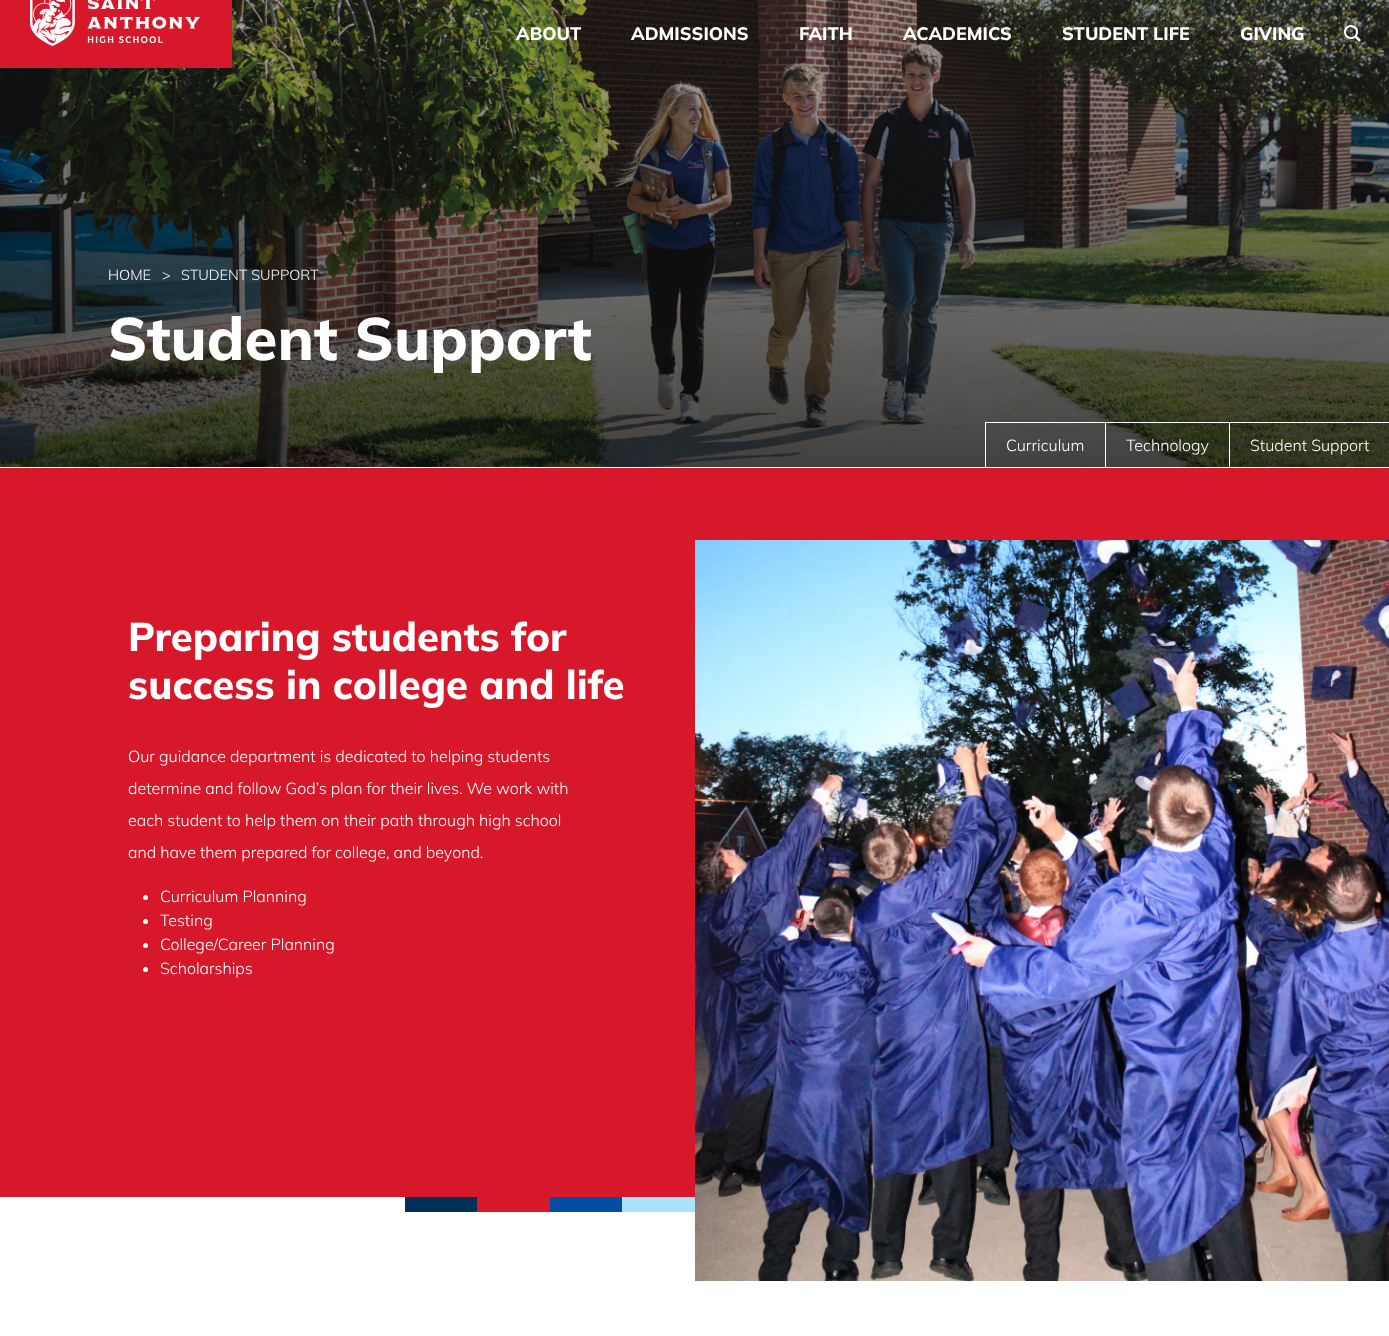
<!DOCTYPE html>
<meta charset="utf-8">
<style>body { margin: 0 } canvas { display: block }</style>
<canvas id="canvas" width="1389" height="1336"></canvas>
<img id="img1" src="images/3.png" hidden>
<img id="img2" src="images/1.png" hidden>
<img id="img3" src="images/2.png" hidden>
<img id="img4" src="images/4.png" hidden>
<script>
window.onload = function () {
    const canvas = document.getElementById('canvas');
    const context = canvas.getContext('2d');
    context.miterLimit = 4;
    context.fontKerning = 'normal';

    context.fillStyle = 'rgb(255, 255, 255)';
    context.fillRect(0, 0, 1389, 1336);
    context.drawImage(document.getElementById('img1'), 0, 0, 1389, 467);
    context.fillStyle = 'rgb(215, 24, 42)';
    context.fillRect(0, 0, 232, 68);
    context.drawImage(document.getElementById('img2'), 30, 0, 170, 46);
    context.drawImage(document.getElementById('img3'), 1344, 25, 17, 17);
    context.fillStyle = 'rgb(255, 255, 255)';
    context.fillRect(985, 422, 404, 1);
    context.fillRect(985, 422, 1, 45);
    context.fillRect(1105, 423, 1, 44);
    context.fillRect(1229, 423, 1, 44);
    context.fillStyle = 'rgb(215, 24, 42)';
    context.fillRect(0, 468, 1389, 729);
    context.fillStyle = 'rgb(255, 255, 255)';
    context.beginPath();
    context.arc(145.5, 897.5, 2.5, 0, 2 * Math.PI);
    context.fill();
    context.beginPath();
    context.arc(145.5, 921.5, 2.5, 0, 2 * Math.PI);
    context.fill();
    context.beginPath();
    context.arc(145.5, 945.5, 2.5, 0, 2 * Math.PI);
    context.fill();
    context.beginPath();
    context.arc(145.5, 969.5, 2.5, 0, 2 * Math.PI);
    context.fill();
    context.fillStyle = 'rgb(0, 48, 88)';
    context.fillRect(405, 1197, 72, 15);
    context.fillStyle = 'rgb(215, 24, 42)';
    context.fillRect(477, 1197, 73, 15);
    context.fillStyle = 'rgb(3, 78, 162)';
    context.fillRect(550, 1197, 72, 15);
    context.fillStyle = 'rgb(171, 225, 250)';
    context.fillRect(622, 1197, 73, 15);
    context.drawImage(document.getElementById('img4'), 695, 540, 694, 741);
    context.font = '800 18px Mulish';
    context.fillStyle = 'rgb(255, 255, 255)';
    context.fillText('ABOUT', 516, 40);
    context.fillText('ADMISSIONS', 631, 40);
    context.fillText('FAITH', 799, 40);
    context.fillText('ACADEMICS', 903, 40);
    context.fillText('STUDENT LIFE', 1062, 40);
    context.fillText('GIVING', 1240, 40);
    context.font = '300 14.5px Mulish';
    context.fillText('HOME', 108, 280);
    context.fillText('>', 162, 280);
    context.fillText('STUDENT SUPPORT', 181, 280);
    context.font = '800 59.75px Mulish';
    context.fillText('Student Support', 108, 360);
    context.font = '300 16px Mulish';
    context.fillText('Curriculum', 1006, 451);
    context.fillText('Technology', 1126, 451);
    context.fillText('Student Support', 1250, 451);
    context.font = '800 40px Mulish';
    context.fillText('Preparing students for', 128, 651);
    context.fillText('success in college and life', 128, 699);
    context.font = '300 16px Mulish';
    context.fillText('Our guidance department is dedicated to helping students', 128, 762);
    context.fillText('determine and follow God’s plan for their lives. We work with', 128, 794);
    context.fillText('each student to help them on their path through high school', 128, 826);
    context.fillText('and have them prepared for college, and beyond.', 128, 858);
    context.fillText('Curriculum Planning', 160, 902);
    context.fillText('Testing', 160, 926);
    context.fillText('College/Career Planning', 160, 950);
    context.fillText('Scholarships', 160, 974);
};
</script>
